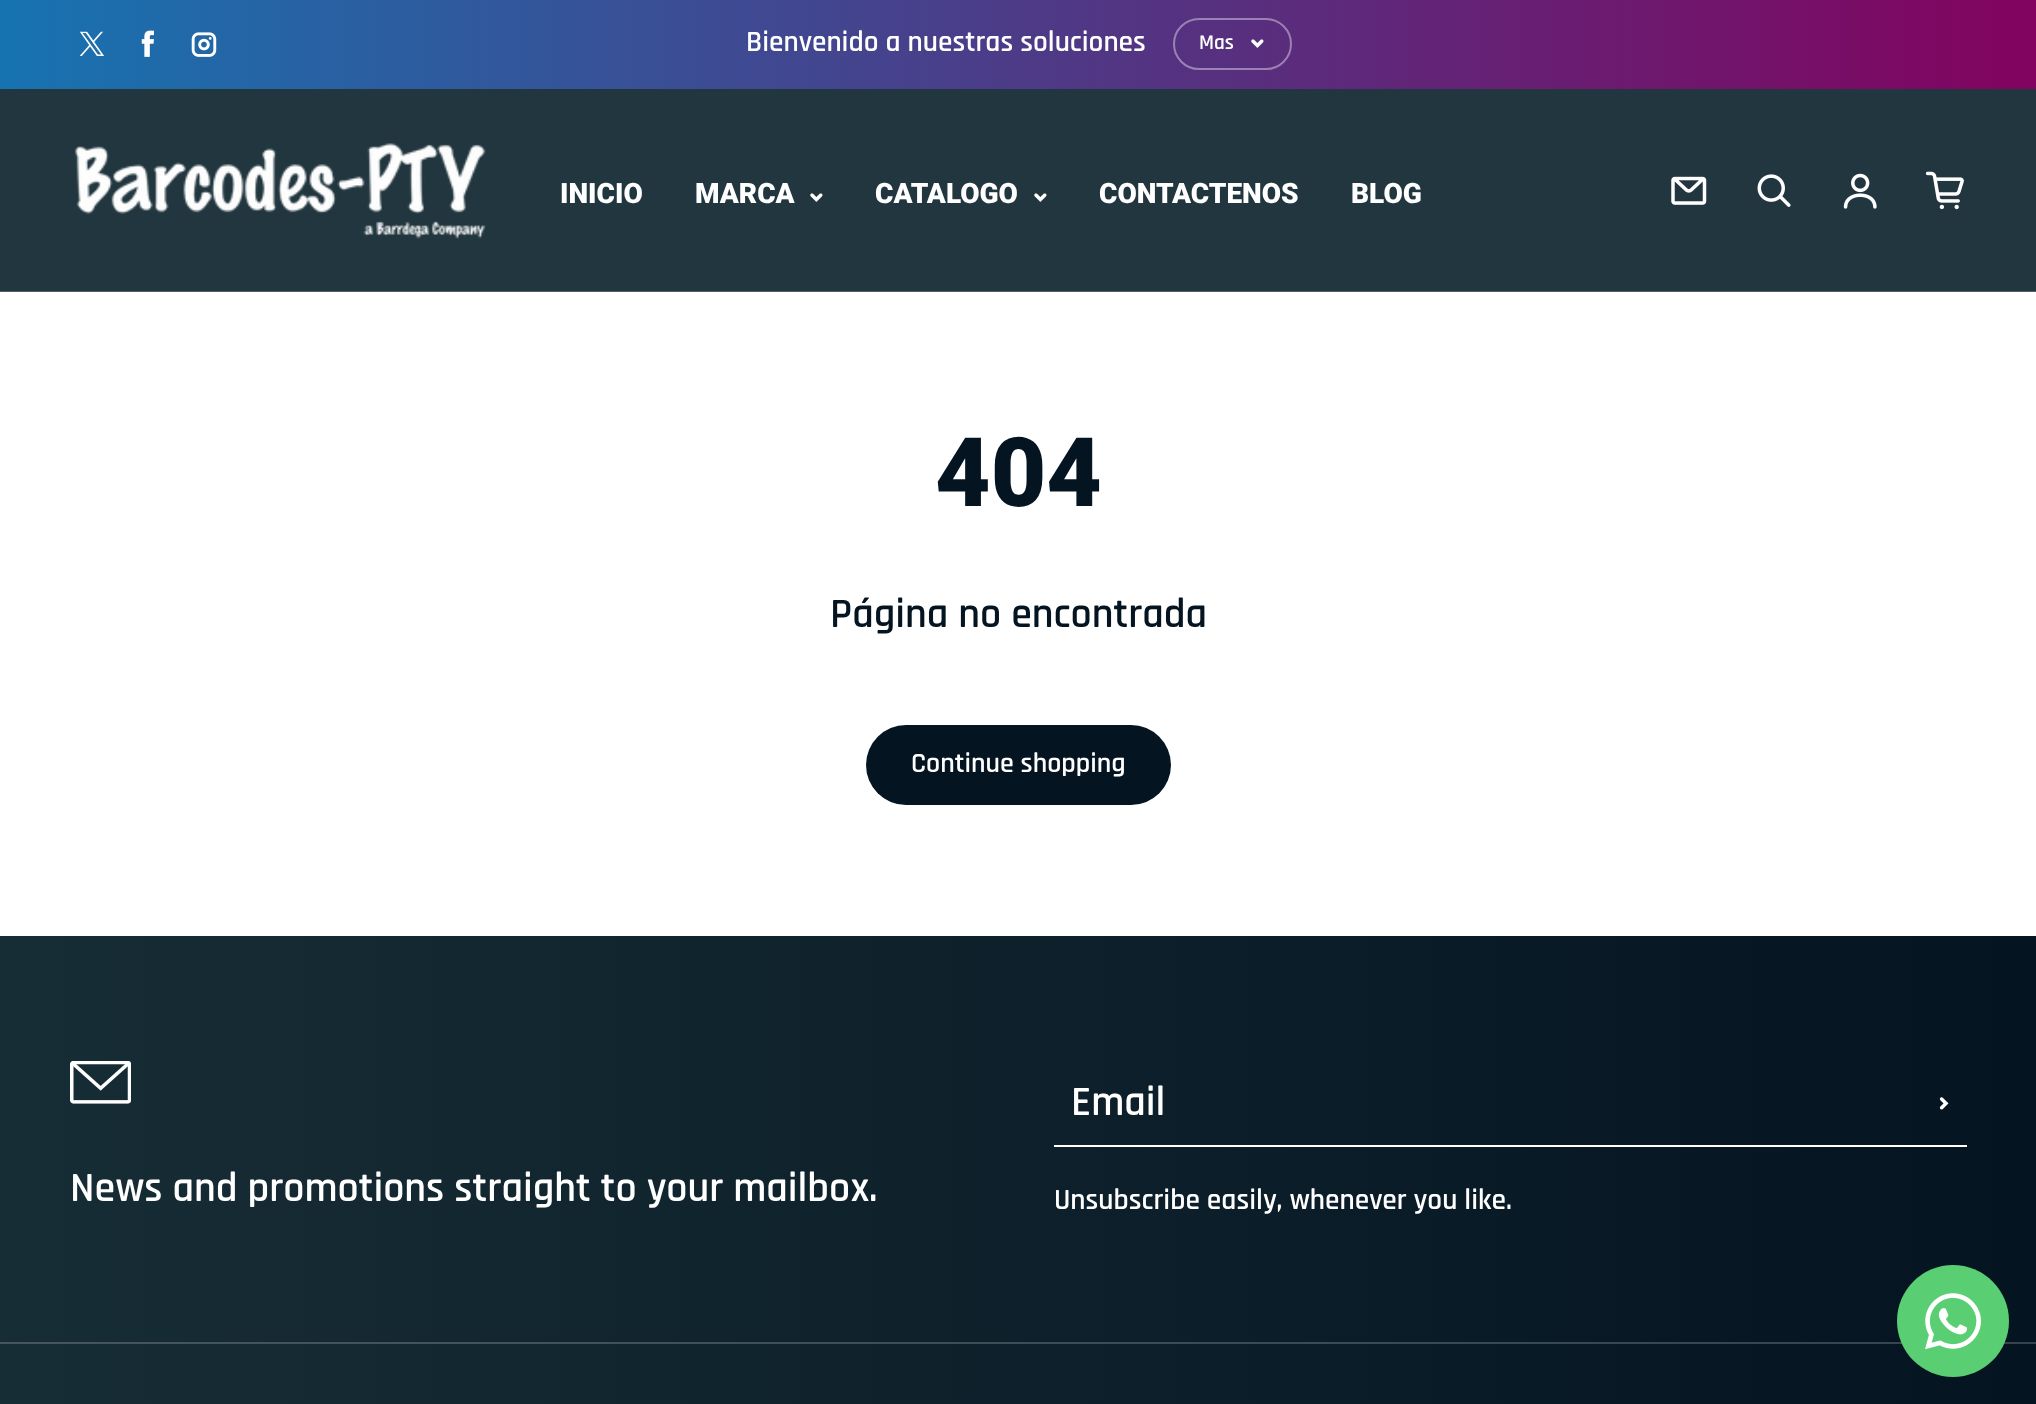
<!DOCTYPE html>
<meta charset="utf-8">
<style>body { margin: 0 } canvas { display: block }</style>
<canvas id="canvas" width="2036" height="1404"></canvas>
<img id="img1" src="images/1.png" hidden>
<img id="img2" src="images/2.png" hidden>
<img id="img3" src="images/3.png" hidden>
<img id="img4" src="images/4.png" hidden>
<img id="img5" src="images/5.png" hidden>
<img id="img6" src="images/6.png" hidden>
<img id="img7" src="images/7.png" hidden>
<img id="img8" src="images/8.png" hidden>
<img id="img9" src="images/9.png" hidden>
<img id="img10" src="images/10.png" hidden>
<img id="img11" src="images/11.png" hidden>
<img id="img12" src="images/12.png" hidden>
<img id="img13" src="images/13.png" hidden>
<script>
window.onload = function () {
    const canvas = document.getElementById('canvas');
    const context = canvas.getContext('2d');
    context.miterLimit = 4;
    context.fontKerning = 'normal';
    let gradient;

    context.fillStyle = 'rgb(255, 255, 255)';
    context.fillRect(0, 0, 2036, 1404);
    gradient = context.createLinearGradient(0, 703, 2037, 703);
    gradient.addColorStop(0, 'rgb(23, 115, 176)');
    gradient.addColorStop(1, 'rgb(130, 3, 95)');
    context.fillStyle = gradient;
    context.fillRect(0, 0, 2036, 89);
    context.drawImage(document.getElementById('img1'), 79, 31, 25, 25);
    context.drawImage(document.getElementById('img2'), 141, 30, 13, 27);
    context.drawImage(document.getElementById('img3'), 191, 32, 26, 25);
    context.beginPath();
    context.roundRect(1174, 19, 117, 50, 25);
    context.strokeStyle = 'rgba(255, 255, 255, 0.4)';
    context.lineWidth = 2;
    context.stroke();
    context.drawImage(document.getElementById('img4'), 1251, 39, 13, 9);
    context.fillStyle = 'rgb(33, 54, 62)';
    context.fillRect(0, 89, 2036, 202);
    context.fillStyle = 'rgb(77, 94, 101)';
    context.fillRect(0, 291, 2036, 1);
    context.drawImage(document.getElementById('img5'), 74, 143, 412, 96);
    context.drawImage(document.getElementById('img6'), 810, 193, 13, 9);
    context.drawImage(document.getElementById('img6'), 1034, 193, 13, 9);
    context.drawImage(document.getElementById('img7'), 1671, 176, 36, 29);
    context.drawImage(document.getElementById('img8'), 1757, 174, 34, 33);
    context.drawImage(document.getElementById('img9'), 1843, 173, 34, 36);
    context.drawImage(document.getElementById('img10'), 1925, 171, 39, 39);
    context.fillStyle = 'rgb(4, 20, 33)';
    context.beginPath();
    context.roundRect(866, 725, 305, 80, 40);
    context.fill();
    gradient = context.createLinearGradient(0, 1139, 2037, 1139);
    gradient.addColorStop(0, 'rgb(23, 45, 53)');
    gradient.addColorStop(1, 'rgb(4, 20, 33)');
    context.fillStyle = gradient;
    context.fillRect(0, 936, 2036, 406);
    context.drawImage(document.getElementById('img11'), 70, 1061, 61, 43);
    context.drawImage(document.getElementById('img12'), 1939, 1097, 10, 13);
    context.fillStyle = 'rgb(255, 255, 255)';
    context.fillRect(1054, 1145, 913, 2);
    gradient = context.createLinearGradient(0, 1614, 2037, 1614);
    gradient.addColorStop(0, 'rgb(23, 45, 53)');
    gradient.addColorStop(1, 'rgb(4, 20, 33)');
    context.fillStyle = gradient;
    context.fillRect(0, 1344, 2036, 60);
    gradient = context.createLinearGradient(0, 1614, 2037, 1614);
    gradient.addColorStop(0, 'rgb(69, 87, 93)');
    gradient.addColorStop(1, 'rgb(54, 67, 77)');
    context.fillStyle = gradient;
    context.fillRect(0, 1342, 2036, 2);
    context.fillStyle = 'rgb(89, 206, 114)';
    context.beginPath();
    context.arc(1953, 1321, 56, 0, 2 * Math.PI);
    context.fill();
    context.drawImage(document.getElementById('img13'), 1925, 1293, 56, 56);
    context.font = '600 29.4px Rajdhani';
    context.fillStyle = 'rgb(255, 255, 255)';
    context.fillText('Bienvenido a nuestras soluciones', 746, 51);
    context.font = '600 21px Rajdhani';
    context.fillText('Mas', 1199, 49);
    context.font = '900 28px Roboto';
    context.fillText('INICIO', 560, 203);
    context.fillText('MARCA', 695, 203);
    context.fillText('CATALOGO', 875, 203);
    context.fillText('CONTACTENOS', 1099, 203);
    context.fillText('BLOG', 1351, 203);
    context.font = '900 96px Roboto';
    context.fillStyle = 'rgb(4, 20, 33)';
    context.fillText('404', 935, 506);
    context.font = '600 42px Rajdhani';
    context.fillText('Página no encontrada', 830, 627);
    context.font = '600 28px Rajdhani';
    context.fillStyle = 'rgb(255, 255, 255)';
    context.fillText('Continue shopping', 911, 772);
    context.font = '600 42px Rajdhani';
    context.fillText('News and promotions straight to your mailbox.', 70, 1201);
    context.fillText('Email', 1071, 1115);
    context.font = '600 29.4px Rajdhani';
    context.fillText('Unsubscribe easily, whenever you like.', 1054, 1209);
};
</script>
